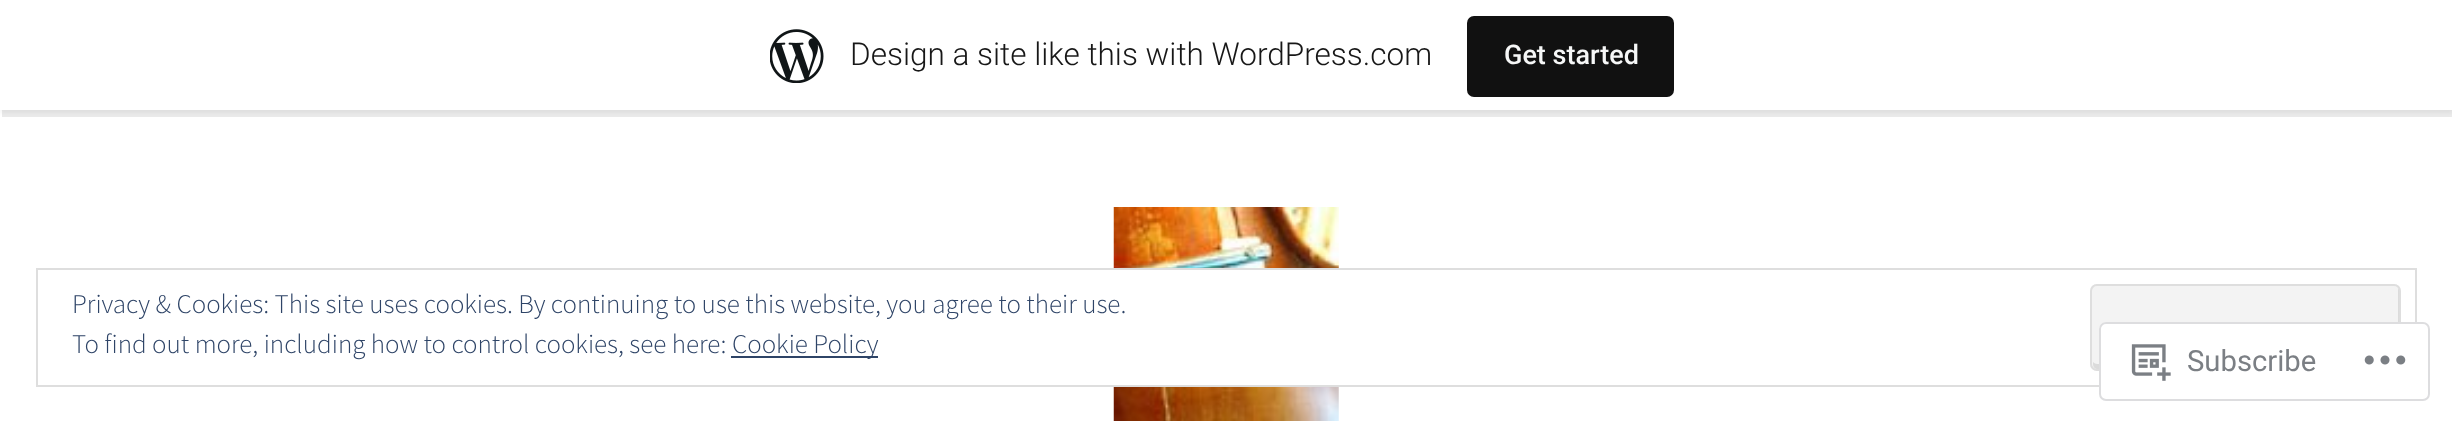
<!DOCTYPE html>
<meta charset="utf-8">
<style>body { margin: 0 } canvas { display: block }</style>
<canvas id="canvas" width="2452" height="421"></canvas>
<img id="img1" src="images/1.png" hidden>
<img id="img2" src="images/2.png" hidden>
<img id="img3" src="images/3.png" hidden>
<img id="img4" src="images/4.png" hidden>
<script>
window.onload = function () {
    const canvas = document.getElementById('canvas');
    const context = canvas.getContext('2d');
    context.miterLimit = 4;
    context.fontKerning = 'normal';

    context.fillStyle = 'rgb(255, 255, 255)';
    context.fillRect(0, 0, 2452, 421);
    context.fillStyle = 'rgba(0, 0, 0, 0.05)';
    context.filter = 'blur(2px)';
    context.beginPath();
    context.rect(0, 2, 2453, 111);
    context.fill();
    context.filter = 'none';
    context.fillStyle = 'rgba(0, 0, 0, 0.08)';
    context.beginPath();
    context.moveTo(2, 110);
    context.lineTo(2, 117);
    context.lineTo(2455, 117);
    context.lineTo(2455, 7);
    context.lineTo(2452, 7);
    context.lineTo(2452, 110);
    context.closePath();
    context.fill();
    context.fillStyle = 'rgb(255, 255, 255)';
    context.fillRect(0, 0, 2452, 110);
    context.drawImage(document.getElementById('img1'), 770, 29, 54, 54);
    context.fillStyle = 'rgb(17, 17, 17)';
    context.beginPath();
    context.roundRect(1467, 16, 207, 81, 7);
    context.fill();
    context.drawImage(document.getElementById('img2'), 1113, 207, 226, 214);
    context.fillStyle = 'rgb(255, 255, 255)';
    context.fillRect(1113, 270, 226, 115);
    context.strokeStyle = 'rgb(222, 222, 222)';
    context.lineWidth = 2;
    context.strokeRect(37, 269, 2379, 117);
    context.fillStyle = 'rgb(243, 243, 243)';
    context.beginPath();
    context.roundRect(2090, 284, 311, 87, 7);
    context.fill();
    context.fillStyle = 'rgb(219, 219, 219)';
    context.beginPath();
    context.moveTo(2093, 362);
    context.lineTo(2093, 364);
    context.bezierCurveTo(2093, 367, 2095, 369, 2098, 369);
    context.lineTo(2394, 369);
    context.bezierCurveTo(2397, 369, 2399, 367, 2399, 364);
    context.lineTo(2399, 291);
    context.bezierCurveTo(2399, 290, 2399, 289, 2398, 288);
    context.lineTo(2398, 360);
    context.bezierCurveTo(2398, 362, 2396, 364, 2394, 364);
    context.lineTo(2097, 364);
    context.bezierCurveTo(2096, 364, 2094, 363, 2093, 362);
    context.closePath();
    context.fill();
    context.beginPath();
    context.roundRect(2091, 285, 309, 85, 6);
    context.stroke();
    context.fillStyle = 'rgb(46, 68, 103)';
    context.fillRect(731, 356, 147, 2);
    context.fillStyle = 'rgba(255, 255, 255, 0.98)';
    context.beginPath();
    context.roundRect(2099, 322, 331, 79, 7);
    context.fill();
    context.beginPath();
    context.roundRect(2100, 323, 329, 77, 6);
    context.strokeStyle = 'rgba(220, 220, 222, 0.98)';
    context.stroke();
    context.drawImage(document.getElementById('img3'), 2131, 344, 40, 37);
    context.drawImage(document.getElementById('img4'), 2364, 355, 42, 10);
    context.font = '300 31.5px Roboto';
    context.fillStyle = 'rgb(23, 23, 23)';
    context.fillText('Design a site like this with WordPress.com', 850, 65);
    context.font = '500 27px Roboto';
    context.fillStyle = 'rgb(246, 247, 247)';
    context.fillText('Get started', 1504, 64);
    context.font = '300 27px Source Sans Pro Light';
    context.fillStyle = 'rgb(46, 68, 103)';
    context.fillText('Privacy & Cookies: This site uses cookies. By continuing to use this website, you agree to their use.', 72, 313);
    context.fillText('To find out more, including how to control cookies, see here:', 72, 353);
    context.fillText('Cookie Policy', 732, 353);
    context.font = '29.25px Roboto';
    context.fillStyle = 'rgb(123, 127, 132)';
    context.fillText('Subscribe', 2187, 371);
};
</script>
